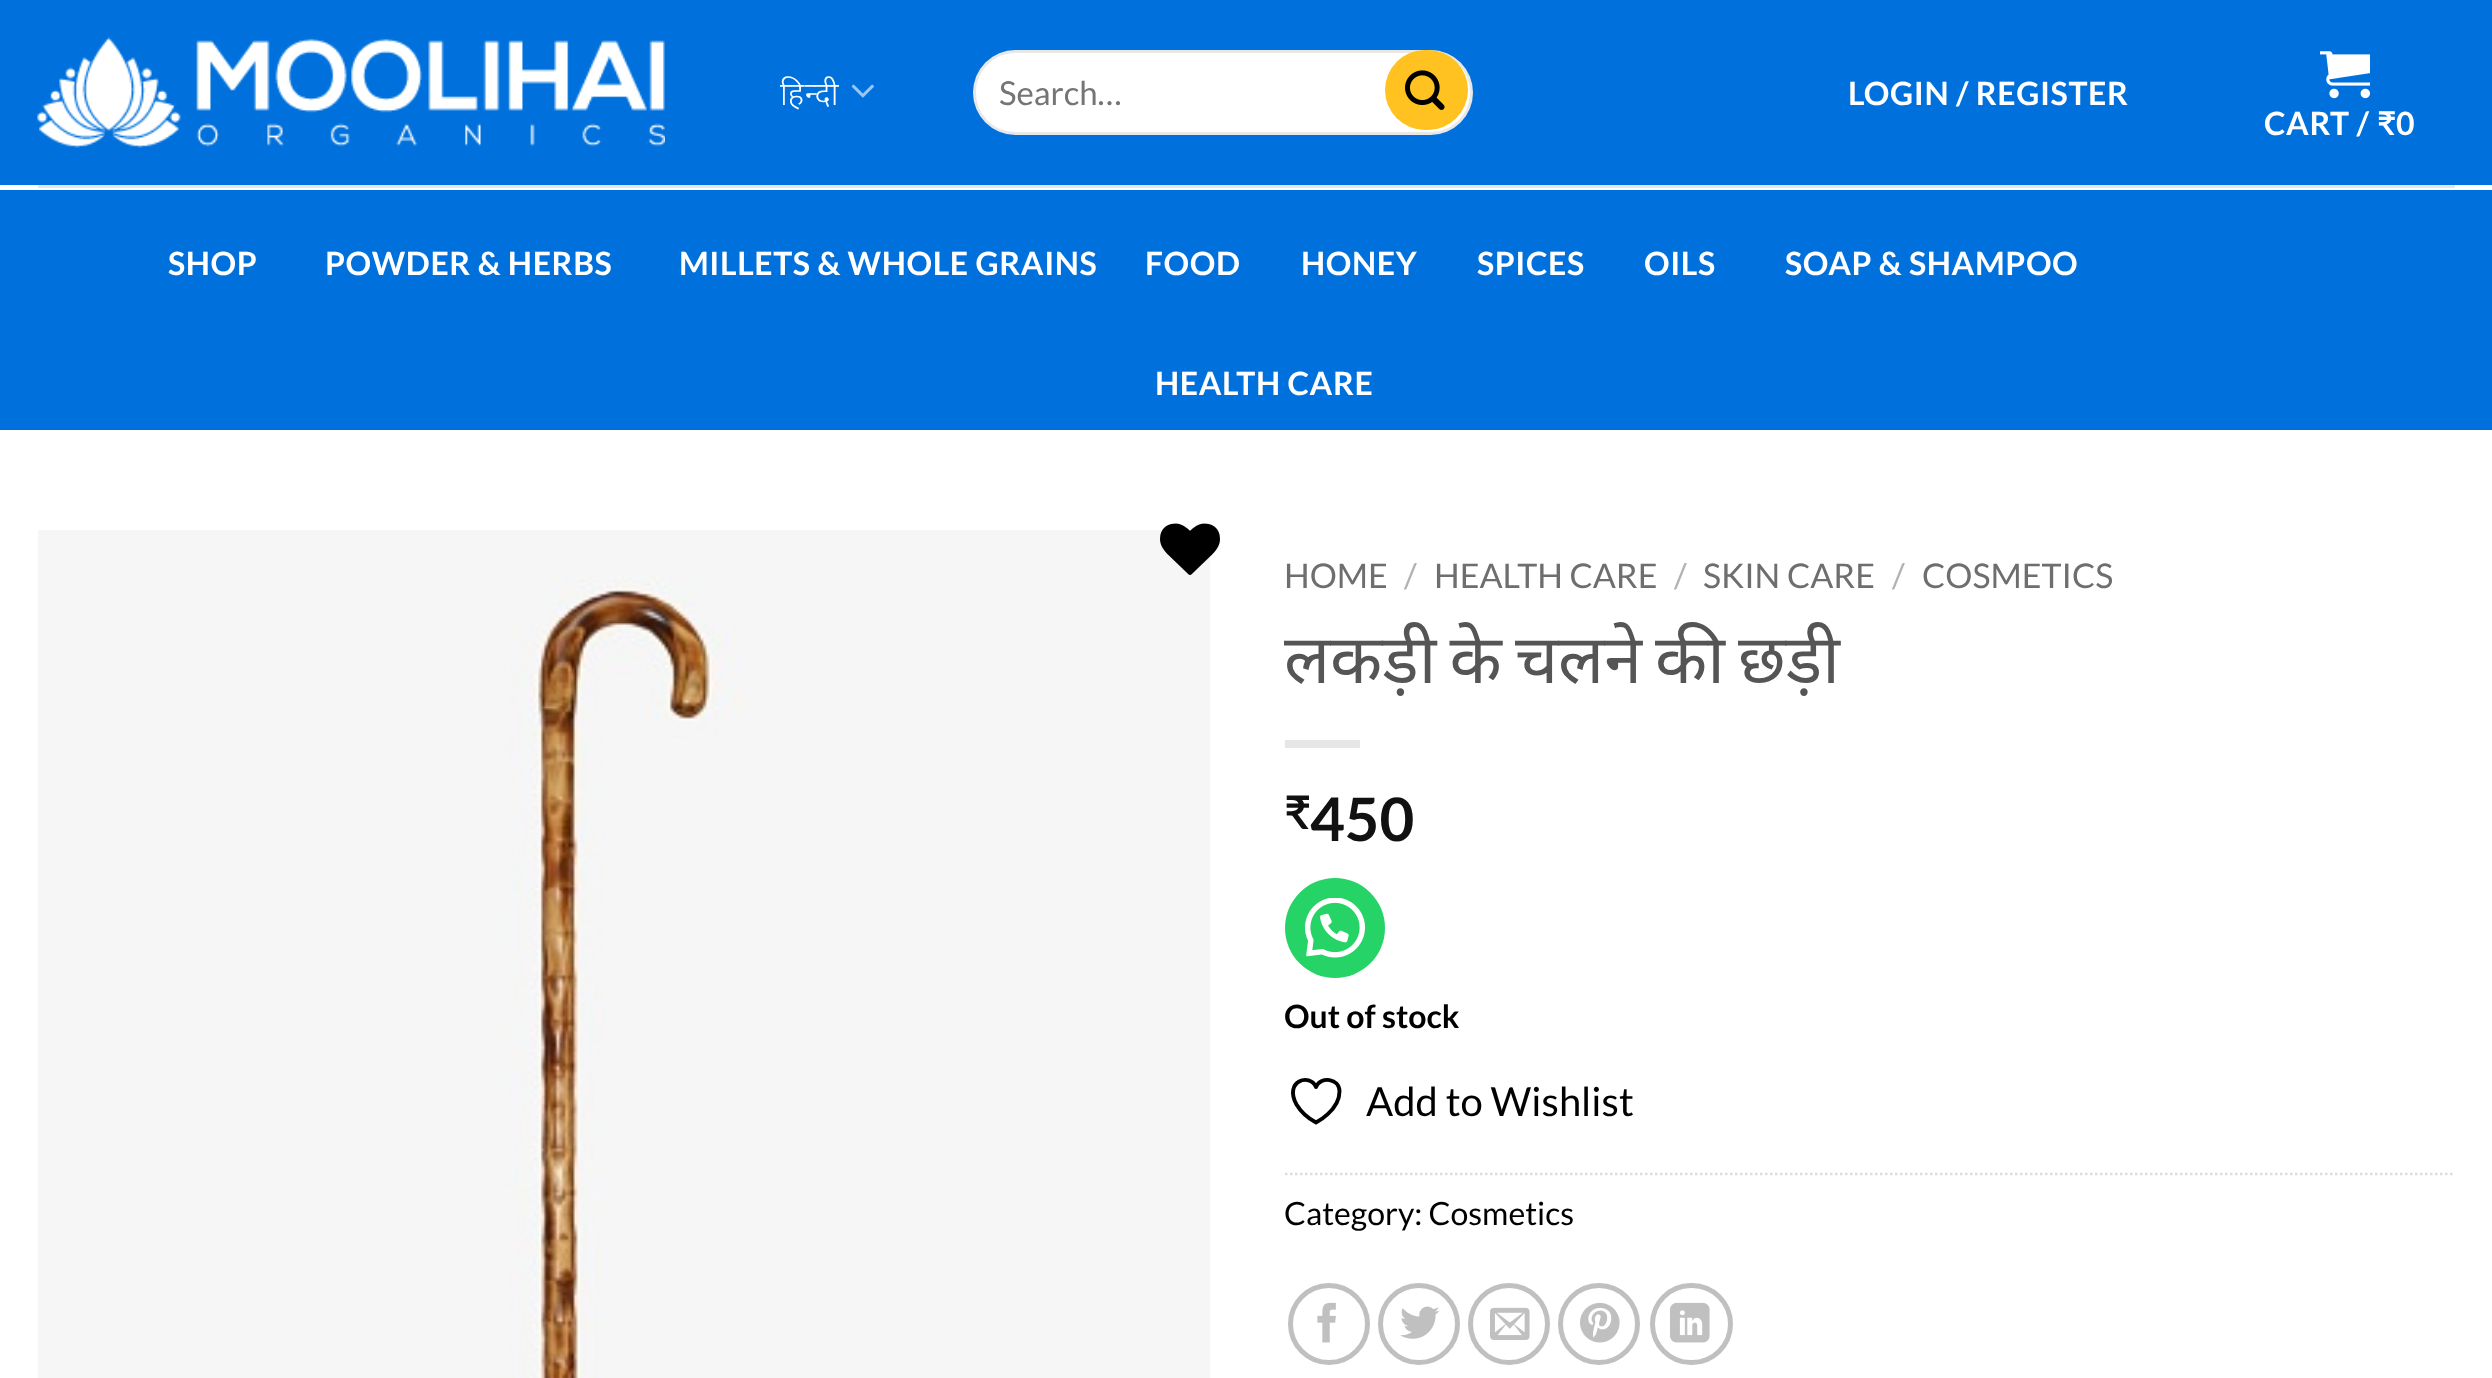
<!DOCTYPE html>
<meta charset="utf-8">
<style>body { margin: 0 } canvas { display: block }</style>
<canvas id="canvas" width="2492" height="1378"></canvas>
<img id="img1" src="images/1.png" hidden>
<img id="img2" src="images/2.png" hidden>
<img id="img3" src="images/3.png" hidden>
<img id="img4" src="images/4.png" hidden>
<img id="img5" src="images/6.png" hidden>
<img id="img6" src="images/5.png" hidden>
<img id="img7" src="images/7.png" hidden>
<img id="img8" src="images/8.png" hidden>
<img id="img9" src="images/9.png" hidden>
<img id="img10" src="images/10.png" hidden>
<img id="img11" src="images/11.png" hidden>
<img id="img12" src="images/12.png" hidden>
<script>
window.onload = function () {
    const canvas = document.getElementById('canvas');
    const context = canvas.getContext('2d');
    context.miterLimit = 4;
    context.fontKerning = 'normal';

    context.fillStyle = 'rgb(255, 255, 255)';
    context.fillRect(0, 0, 2492, 1378);
    context.fillStyle = 'rgb(0, 113, 220)';
    context.fillRect(0, 0, 2492, 430);
    context.drawImage(document.getElementById('img1'), 37, 37, 628, 111);
    context.drawImage(document.getElementById('img2'), 851, 84, 23, 14);
    context.fillStyle = 'rgb(255, 255, 255)';
    context.beginPath();
    context.roundRect(973, 50, 500, 85, 42.5);
    context.fill();
    context.beginPath();
    context.roundRect(974.5, 51.5, 497, 82, 41);
    context.strokeStyle = 'rgba(0, 0, 0, 0.09)';
    context.lineWidth = 3;
    context.stroke();
    context.fillStyle = 'rgb(255, 194, 32)';
    context.beginPath();
    context.roundRect(1385, 50, 83, 80, 40);
    context.fill();
    context.drawImage(document.getElementById('img3'), 1405, 70, 40, 40);
    context.drawImage(document.getElementById('img4'), 2320, 51, 50, 48);
    context.fillStyle = 'rgb(255, 255, 255)';
    context.fillRect(0, 185, 2492, 5);
    context.fillStyle = 'rgb(230, 230, 230)';
    context.fillRect(38, 185, 2417, 3);
    context.drawImage(document.getElementById('img5'), 38, 530, 1172, 848);
    context.drawImage(document.getElementById('img6'), 1160, 523, 60, 52);
    context.fillRect(1285, 740, 75, 8);
    context.fillStyle = 'rgb(37, 211, 102)';
    context.beginPath();
    context.arc(1335, 928, 50, 0, 2 * Math.PI);
    context.fill();
    context.drawImage(document.getElementById('img7'), 1305, 898, 60, 60);
    context.beginPath();
    context.moveTo(1339.5, 1091.5);
    context.bezierCurveTo(1339.5, 1078.5, 1321, 1075.5, 1316, 1087);
    context.bezierCurveTo(1310, 1072.5, 1283.5, 1081, 1296.5, 1104.5);
    context.bezierCurveTo(1301, 1112, 1308.5, 1118.5, 1316, 1122.5);
    context.bezierCurveTo(1316, 1122.5, 1339.5, 1110.5, 1339.5, 1091.5);
    context.closePath();
    context.strokeStyle = 'rgb(0, 0, 0)';
    context.lineWidth = 3.9;
    context.lineCap = 'round';
    context.lineJoin = 'round';
    context.stroke();
    context.beginPath();
    context.moveTo(1285, 1174);
    context.lineTo(2455, 1174);
    context.strokeStyle = 'rgb(221, 221, 221)';
    context.lineWidth = 2.5;
    context.lineCap = 'butt';
    context.lineJoin = 'miter';
    context.setLineDash([2.5, 2.5]);
    context.stroke();
    context.beginPath();
    context.arc(1329, 1324, 38.5, 0, 2 * Math.PI);
    context.strokeStyle = 'rgb(192, 192, 192)';
    context.lineWidth = 5;
    context.setLineDash([]);
    context.stroke();
    context.drawImage(document.getElementById('img8'), 1317, 1302, 19, 41);
    context.beginPath();
    context.arc(1419, 1324, 38.5, 0, 2 * Math.PI);
    context.stroke();
    context.drawImage(document.getElementById('img9'), 1400, 1306, 40, 33);
    context.beginPath();
    context.arc(1509, 1324, 38.5, 0, 2 * Math.PI);
    context.stroke();
    context.drawImage(document.getElementById('img10'), 1490, 1307, 40, 33);
    context.beginPath();
    context.arc(1599, 1324, 38.5, 0, 2 * Math.PI);
    context.stroke();
    context.drawImage(document.getElementById('img11'), 1580, 1302, 40, 41);
    context.beginPath();
    context.roundRect(1652.5, 1285.5, 78, 77, 38.5);
    context.stroke();
    context.drawImage(document.getElementById('img12'), 1670, 1302, 40, 41);
    context.letterSpacing = '0.6px';
    context.font = '300 32px Noto Sans';
    context.fillStyle = 'rgb(255, 255, 255)';
    context.fillText('हिन्दी', 780, 105);
    context.letterSpacing = '0px';
    context.font = '33px Lato';
    context.fillStyle = 'rgb(117, 117, 117)';
    context.fillText('Search…', 999, 105);
    context.letterSpacing = '0.6px';
    context.font = 'bold 32px "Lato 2"';
    context.fillStyle = 'rgb(255, 255, 255)';
    context.fillText('LOGIN / REGISTER', 1848, 105);
    context.fillText('CART /', 2264, 135);
    context.font = 'bold 32px Lato';
    context.fillText('₹', 2377, 135);
    context.font = 'bold 32px "Lato 2"';
    context.fillText('0', 2396, 135);
    context.fillText('SHOP', 168, 275);
    context.fillText('POWDER & HERBS', 325, 275);
    context.fillText('MILLETS & WHOLE GRAINS', 679, 275);
    context.fillText('FOOD', 1145, 275);
    context.fillText('HONEY', 1301, 275);
    context.fillText('SPICES', 1477, 275);
    context.fillText('OILS', 1644, 275);
    context.fillText('SOAP & SHAMPOO', 1785, 275);
    context.fillText('HEALTH CARE', 1155, 395);
    context.letterSpacing = '0px';
    context.font = '34px Lato';
    context.fillStyle = 'rgb(110, 110, 110)';
    context.fillText('HOME', 1284, 588);
    context.fillStyle = 'rgb(178, 178, 178)';
    context.fillText('/', 1404, 588);
    context.fillStyle = 'rgb(110, 110, 110)';
    context.fillText('HEALTH CARE', 1434, 588);
    context.fillStyle = 'rgb(178, 178, 178)';
    context.fillText('/', 1674, 588);
    context.fillStyle = 'rgb(110, 110, 110)';
    context.fillText('SKIN CARE', 1703, 588);
    context.fillStyle = 'rgb(178, 178, 178)';
    context.fillText('/', 1892, 588);
    context.fillStyle = 'rgb(110, 110, 110)';
    context.fillText('COSMETICS', 1922, 588);
    context.wordSpacing = '-4.5px';
    context.font = '68px Noto Sans';
    context.fillStyle = 'rgb(85, 85, 85)';
    context.fillText('लकड़ी के चलने की छड़ी', 1284, 683);
    context.wordSpacing = '0px';
    context.font = 'bold 45px Lato';
    context.fillStyle = 'rgb(17, 17, 17)';
    context.fillText('₹', 1284, 829);
    context.font = 'bold 60px "Lato 2"';
    context.fillText('450', 1310, 841);
    context.font = 'bold 32px "Lato 2"';
    context.fillStyle = 'rgb(0, 0, 0)';
    context.fillText('Out of stock', 1284, 1028);
    context.font = '40px Lato';
    context.fillText('Add to Wishlist', 1366, 1116);
    context.font = '32px Lato';
    context.fillText('Category: Cosmetics', 1284, 1225);
};
</script>
